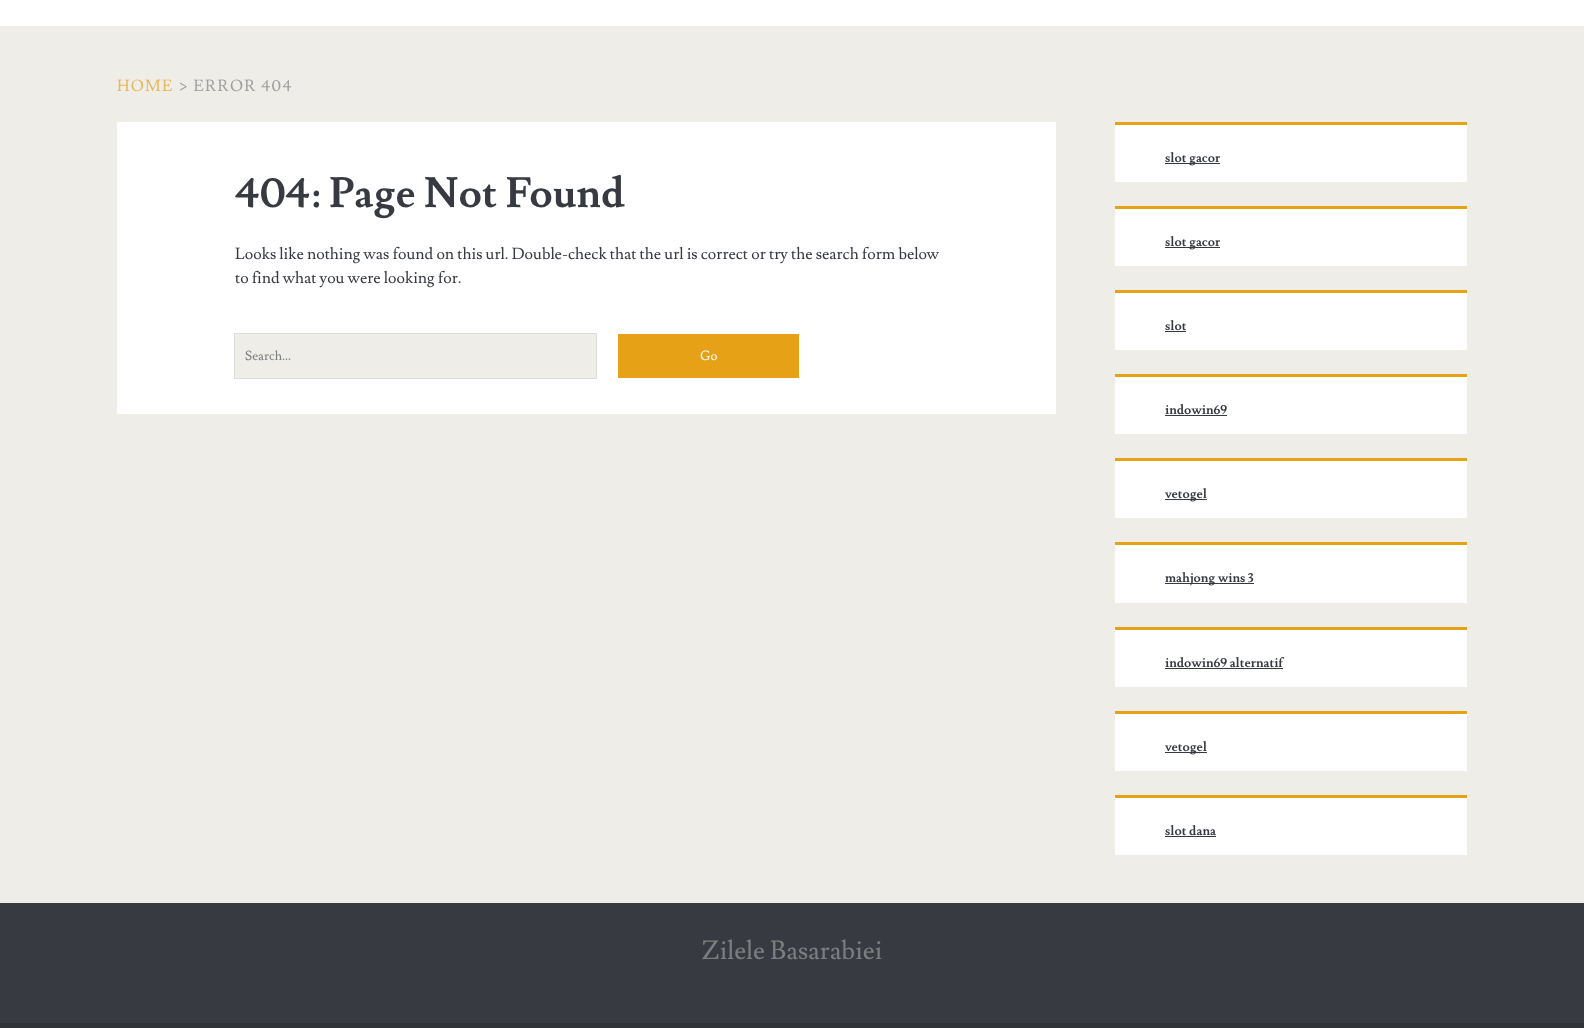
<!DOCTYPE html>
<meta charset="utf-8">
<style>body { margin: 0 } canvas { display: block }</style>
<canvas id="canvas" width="1584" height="1028"></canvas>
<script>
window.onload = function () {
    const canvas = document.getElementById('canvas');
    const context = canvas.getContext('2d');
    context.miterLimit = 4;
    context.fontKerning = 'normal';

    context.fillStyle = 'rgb(238, 237, 232)';
    context.fillRect(0, 0, 1584, 1028);
    context.fillStyle = 'rgb(255, 255, 255)';
    context.fillRect(0, 0, 1584, 26);
    context.fillRect(117, 122, 939, 292);
    context.fillStyle = 'rgb(238, 237, 232)';
    context.fillRect(235, 334, 361, 44);
    context.strokeStyle = 'rgb(217, 220, 223)';
    context.strokeRect(234.5, 333.5, 362, 45);
    context.fillStyle = 'rgb(230, 161, 23)';
    context.fillRect(618, 334, 181, 44);
    context.fillStyle = 'rgb(255, 255, 255)';
    context.fillRect(1115, 125, 352, 57);
    context.fillStyle = 'rgb(230, 161, 23)';
    context.fillRect(1115, 122, 352, 3);
    context.fillStyle = 'rgb(55, 59, 65)';
    context.fillRect(1165, 163, 55, 1);
    context.fillStyle = 'rgb(255, 255, 255)';
    context.fillRect(1115, 209, 352, 57);
    context.fillStyle = 'rgb(230, 161, 23)';
    context.fillRect(1115, 206, 352, 3);
    context.fillStyle = 'rgb(55, 59, 65)';
    context.fillRect(1165, 247, 55, 1);
    context.fillStyle = 'rgb(255, 255, 255)';
    context.fillRect(1115, 293, 352, 57);
    context.fillStyle = 'rgb(230, 161, 23)';
    context.fillRect(1115, 290, 352, 3);
    context.fillStyle = 'rgb(55, 59, 65)';
    context.fillRect(1165, 331, 21, 1);
    context.fillStyle = 'rgb(255, 255, 255)';
    context.fillRect(1115, 377, 352, 57);
    context.fillStyle = 'rgb(230, 161, 23)';
    context.fillRect(1115, 374, 352, 3);
    context.fillStyle = 'rgb(55, 59, 65)';
    context.fillRect(1165, 415, 62, 1);
    context.fillStyle = 'rgb(255, 255, 255)';
    context.fillRect(1115, 461, 352, 57);
    context.fillStyle = 'rgb(230, 161, 23)';
    context.fillRect(1115, 458, 352, 3);
    context.fillStyle = 'rgb(55, 59, 65)';
    context.fillRect(1165, 499, 42, 1);
    context.fillStyle = 'rgb(255, 255, 255)';
    context.fillRect(1115, 545, 352, 58);
    context.fillStyle = 'rgb(230, 161, 23)';
    context.fillRect(1115, 542, 352, 3);
    context.fillStyle = 'rgb(55, 59, 65)';
    context.fillRect(1165, 583, 89, 1);
    context.fillStyle = 'rgb(255, 255, 255)';
    context.fillRect(1115, 630, 352, 57);
    context.fillStyle = 'rgb(230, 161, 23)';
    context.fillRect(1115, 627, 352, 3);
    context.fillStyle = 'rgb(55, 59, 65)';
    context.fillRect(1165, 668, 118, 1);
    context.fillStyle = 'rgb(255, 255, 255)';
    context.fillRect(1115, 714, 352, 57);
    context.fillStyle = 'rgb(230, 161, 23)';
    context.fillRect(1115, 711, 352, 3);
    context.fillStyle = 'rgb(55, 59, 65)';
    context.fillRect(1165, 752, 42, 1);
    context.fillStyle = 'rgb(255, 255, 255)';
    context.fillRect(1115, 798, 352, 57);
    context.fillStyle = 'rgb(230, 161, 23)';
    context.fillRect(1115, 795, 352, 3);
    context.fillStyle = 'rgb(55, 59, 65)';
    context.fillRect(1165, 836, 51, 1);
    context.fillRect(0, 903, 1584, 120);
    context.fillStyle = 'rgb(48, 51, 56)';
    context.fillRect(0, 1023, 1584, 5);
    context.letterSpacing = '1.25px';
    context.font = '16px Lusitana';
    context.fillStyle = 'rgb(232, 184, 86)';
    context.fillText('HOME', 117, 91);
    context.fillStyle = 'rgb(158, 159, 159)';
    context.fillText('> ERROR 404', 179, 91);
    context.letterSpacing = '0px';
    context.font = 'bold 42px Lusitana';
    context.fillStyle = 'rgb(55, 59, 65)';
    context.fillText('404: Page Not Found', 235, 207);
    context.font = '16px Lusitana';
    context.fillText('Looks like nothing was found on this url. Double-check that the url is correct or try the search form below', 235, 259);
    context.fillText('to find what you were looking for.', 235, 283);
    context.font = '13px Lusitana';
    context.fillStyle = 'rgb(124, 125, 127)';
    context.fillText('Search...', 245, 360);
    context.fillStyle = 'rgb(255, 255, 255)';
    context.fillText('Go', 700, 360);
    context.font = 'bold 13px Lusitana';
    context.fillStyle = 'rgb(55, 59, 65)';
    context.fillText('slot gacor', 1165, 162);
    context.fillText('slot gacor', 1165, 246);
    context.fillText('slot', 1165, 330);
    context.fillText('indowin69', 1165, 414);
    context.fillText('vetogel', 1165, 498);
    context.fillText('mahjong wins 3', 1165, 582);
    context.fillText('indowin69 alternatif', 1165, 667);
    context.fillText('vetogel', 1165, 751);
    context.fillText('slot dana', 1165, 835);
    context.font = '26px Lusitana';
    context.fillStyle = 'rgb(124, 125, 127)';
    context.fillText('Zilele Basarabiei', 701, 959);
};
</script>
